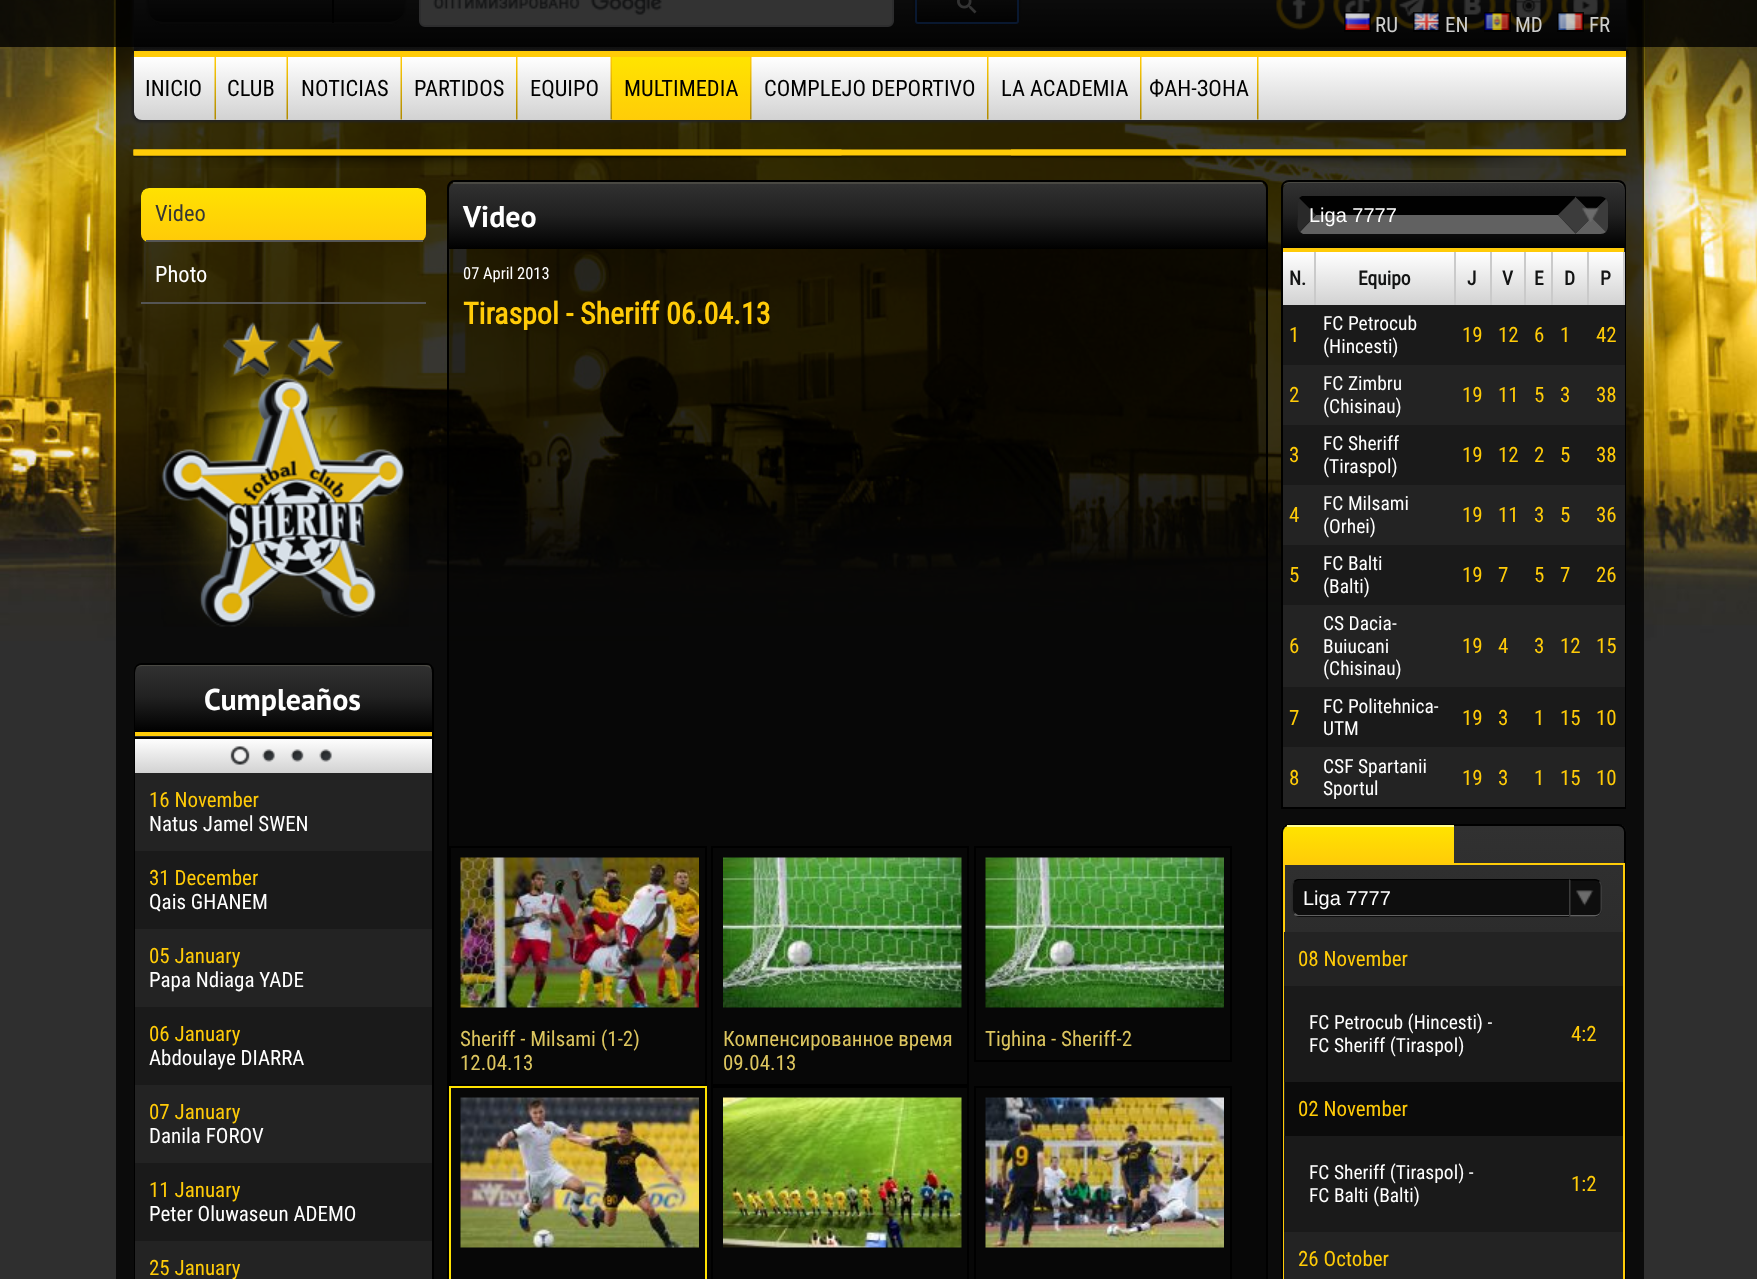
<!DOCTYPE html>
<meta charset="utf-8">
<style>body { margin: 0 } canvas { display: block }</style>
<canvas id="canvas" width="1757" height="1279"></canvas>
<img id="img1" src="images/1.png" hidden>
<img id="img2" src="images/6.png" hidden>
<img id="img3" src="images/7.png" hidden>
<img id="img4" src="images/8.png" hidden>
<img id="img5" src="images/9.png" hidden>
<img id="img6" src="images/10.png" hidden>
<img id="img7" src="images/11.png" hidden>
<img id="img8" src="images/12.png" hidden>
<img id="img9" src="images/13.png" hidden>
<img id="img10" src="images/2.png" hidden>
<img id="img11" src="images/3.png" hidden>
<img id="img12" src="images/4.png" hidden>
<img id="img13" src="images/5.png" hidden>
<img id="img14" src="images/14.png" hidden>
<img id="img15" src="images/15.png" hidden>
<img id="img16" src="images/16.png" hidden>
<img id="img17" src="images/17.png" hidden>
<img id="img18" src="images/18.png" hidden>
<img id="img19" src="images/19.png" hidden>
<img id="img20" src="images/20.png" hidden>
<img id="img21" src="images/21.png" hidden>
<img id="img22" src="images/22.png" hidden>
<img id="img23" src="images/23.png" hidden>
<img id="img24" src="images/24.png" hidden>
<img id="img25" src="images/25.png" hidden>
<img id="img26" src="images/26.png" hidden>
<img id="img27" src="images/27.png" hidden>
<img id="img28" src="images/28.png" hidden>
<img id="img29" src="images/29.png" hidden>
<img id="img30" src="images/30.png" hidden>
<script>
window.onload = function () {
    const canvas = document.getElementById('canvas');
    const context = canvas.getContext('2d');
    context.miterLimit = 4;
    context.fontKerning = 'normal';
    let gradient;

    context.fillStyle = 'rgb(47, 47, 47)';
    context.fillRect(0, 0, 1757, 1279);
    context.drawImage(document.getElementById('img1'), 0, 0, 1757, 641);
    context.fillStyle = 'rgba(0, 0, 0, 0.75)';
    context.fillRect(116, 0, 1528, 1279);
    context.fillStyle = 'rgb(34, 34, 34)';
    context.filter = 'blur(1px)';
    context.beginPath();
    context.roundRect(132, -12, 1496, 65, 9);
    context.fill();
    context.filter = 'none';
    gradient = context.createLinearGradient(880, -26, 880, 51);
    gradient.addColorStop(0, 'rgb(79, 79, 79)');
    gradient.addColorStop(1, 'rgb(14, 14, 14)');
    context.fillStyle = gradient;
    context.fillRect(134, 0, 1492, 51);
    context.fillStyle = 'rgb(34, 34, 34)';
    context.filter = 'blur(1px)';
    context.beginPath();
    context.roundRect(147, -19, 258, 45, 17);
    context.fill();
    context.filter = 'none';
    context.save();
    context.beginPath();
    context.roundRect(149, -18, 255, 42, 15);
    context.clip();
    gradient = context.createLinearGradient(276, -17, 276, 23);
    gradient.addColorStop(0, 'rgb(68, 68, 68)');
    gradient.addColorStop(1, 'rgb(14, 14, 14)');
    context.fillStyle = gradient;
    context.fillRect(149, 0, 255, 23);
    gradient = context.createLinearGradient(276, 22, 276, 62);
    gradient.addColorStop(0, 'rgb(68, 68, 68)');
    gradient.addColorStop(1, 'rgb(14, 14, 14)');
    context.fillStyle = gradient;
    context.fillRect(159, 23, 235, 1);
    context.restore();
    context.fillStyle = 'rgb(44, 43, 42)';
    context.beginPath();
    context.moveTo(164, 24);
    context.lineTo(388, 24);
    context.bezierCurveTo(396, 24, 402, 19, 404, 13);
    context.lineTo(404, 12);
    context.bezierCurveTo(402, 18, 396, 22, 388, 22);
    context.lineTo(164, 22);
    context.bezierCurveTo(156, 22, 150, 18, 148, 12);
    context.bezierCurveTo(148, 19, 158, 24, 164, 24);
    context.closePath();
    context.fill();
    context.fillStyle = 'rgb(0, 0, 0)';
    context.fillRect(332, 0, 2, 23);
    context.fillStyle = 'rgb(255, 255, 255)';
    context.beginPath();
    context.roundRect(420, -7, 473, 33, 5);
    context.fill();
    context.strokeStyle = 'rgb(223, 225, 229)';
    context.lineWidth = 2;
    context.stroke();
    context.drawImage(document.getElementById('img2'), 433, 0, 229, 15);
    context.fillStyle = 'rgb(34, 34, 34)';
    context.filter = 'blur(1px)';
    context.beginPath();
    context.roundRect(914, -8, 106, 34, 5);
    context.fill();
    context.filter = 'none';
    context.save();
    context.beginPath();
    context.roundRect(915, -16, 104, 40, 3);
    context.clip();
    gradient = context.createLinearGradient(967, -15, 967, 23);
    gradient.addColorStop(0, 'rgb(68, 68, 68)');
    gradient.addColorStop(1, 'rgb(14, 14, 14)');
    context.fillStyle = gradient;
    context.fillRect(915, 0, 104, 23);
    context.restore();
    context.beginPath();
    context.roundRect(916, -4, 102, 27, 2);
    context.strokeStyle = 'rgb(48, 121, 237)';
    context.stroke();
    context.drawImage(document.getElementById('img3'), 957, 0, 20, 14);
    context.drawImage(document.getElementById('img4'), 1276, 0, 49, 30);
    context.drawImage(document.getElementById('img5'), 1333, 0, 49, 30);
    context.drawImage(document.getElementById('img6'), 1390, 0, 49, 30);
    context.drawImage(document.getElementById('img7'), 1447, 0, 49, 30);
    context.drawImage(document.getElementById('img8'), 1504, 0, 49, 30);
    context.drawImage(document.getElementById('img9'), 1561, 0, 49, 30);
    context.filter = 'blur(1px)';
    context.beginPath();
    context.roundRect(132, 50, 1496, 72, 9);
    context.fill();
    context.filter = 'none';
    context.fillStyle = 'rgba(0, 0, 0, 0.8)';
    context.fillRect(0, 0, 1757, 47);
    context.strokeStyle = 'rgba(0, 0, 0, 0.8)';
    context.strokeRect(1345, 13, 25, 18);
    context.drawImage(document.getElementById('img10'), 1345, 13, 25, 17);
    context.strokeRect(1414, 13, 25, 18);
    context.drawImage(document.getElementById('img11'), 1414, 13, 25, 17);
    context.strokeRect(1485, 13, 25, 18);
    context.drawImage(document.getElementById('img12'), 1484, 13, 26, 17);
    context.strokeRect(1558, 13, 25, 18);
    context.drawImage(document.getElementById('img13'), 1558, 13, 25, 17);
    gradient = context.createLinearGradient(880, 57, 880, 120);
    gradient.addColorStop(0, 'rgb(255, 255, 255)');
    gradient.addColorStop(1, 'rgb(210, 210, 210)');
    context.fillStyle = gradient;
    context.beginPath();
    context.roundRect(134, 57, 1492, 63, [0, 0, 8, 8]);
    context.fill();
    context.fillStyle = 'rgb(255, 203, 8)';
    context.fillRect(134, 51, 1492, 6);
    context.drawImage(document.getElementById('img14'), 214, 57, 2, 63);
    context.drawImage(document.getElementById('img14'), 286, 57, 2, 63);
    context.drawImage(document.getElementById('img14'), 400, 57, 2, 63);
    context.drawImage(document.getElementById('img15'), 516, 57, 2, 63);
    context.drawImage(document.getElementById('img14'), 610, 57, 2, 63);
    context.drawImage(document.getElementById('img15'), 750, 57, 2, 63);
    gradient = context.createLinearGradient(681, 57, 681, 120);
    gradient.addColorStop(0, 'rgb(255, 228, 0)');
    gradient.addColorStop(1, 'rgb(255, 204, 8)');
    context.fillStyle = gradient;
    context.fillRect(612, 57, 138, 63);
    context.drawImage(document.getElementById('img15'), 987, 57, 2, 63);
    context.drawImage(document.getElementById('img15'), 1140, 57, 2, 63);
    context.drawImage(document.getElementById('img15'), 1257, 57, 2, 63);
    context.drawImage(document.getElementById('img16'), 133, 149, 1493, 9);
    context.drawImage(document.getElementById('img17'), 133, 149, 709, 19);
    context.drawImage(document.getElementById('img18'), 1011, 149, 615, 19);
    context.drawImage(document.getElementById('img19'), 161, 322, 248, 305);
    context.save();
    context.beginPath();
    context.roundRect(141, 188, 285, 54, 8);
    context.clip();
    gradient = context.createLinearGradient(284, 187, 284, 240);
    gradient.addColorStop(0, 'rgb(255, 226, 1)');
    gradient.addColorStop(1, 'rgb(255, 203, 8)');
    context.fillStyle = gradient;
    context.beginPath();
    context.roundRect(141, 188, 285, 52, [8, 8, 0, 0]);
    context.fill();
    gradient = context.createLinearGradient(284, 240, 284, 293);
    gradient.addColorStop(0, 'rgb(255, 226, 1)');
    gradient.addColorStop(1, 'rgb(255, 203, 8)');
    context.fillStyle = gradient;
    context.fillRect(141, 240, 5, 2);
    context.restore();
    context.fillStyle = 'rgb(85, 85, 85)';
    context.fillRect(146, 240, 277, 2);
    context.fillRect(141, 302, 285, 2);
    context.fillStyle = 'rgb(8, 8, 8)';
    context.beginPath();
    context.moveTo(142, 664);
    context.lineTo(426, 664);
    context.bezierCurveTo(430, 664, 433, 667, 433, 671);
    context.lineTo(433, 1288);
    context.lineTo(135, 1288);
    context.lineTo(135, 671);
    context.bezierCurveTo(135, 667, 138, 664, 142, 664);
    context.closePath();
    context.fill();
    context.strokeStyle = 'rgb(0, 0, 0)';
    context.stroke();
    context.save();
    context.beginPath();
    context.roundRect(135, 665, 297, 72, [8, 8, 0, 0]);
    context.clip();
    gradient = context.createLinearGradient(284, 666, 284, 732);
    gradient.addColorStop(0, 'rgb(49, 49, 49)');
    gradient.addColorStop(0.47, 'rgb(33, 33, 33)');
    gradient.addColorStop(1, 'rgb(0, 0, 0)');
    context.fillStyle = gradient;
    context.fillRect(135, 666, 297, 66);
    context.restore();
    gradient = context.createLinearGradient(284, 732, 284, 798);
    gradient.addColorStop(0, 'rgb(49, 49, 49)');
    gradient.addColorStop(0.47, 'rgb(33, 33, 33)');
    gradient.addColorStop(1, 'rgb(0, 0, 0)');
    context.fillStyle = gradient;
    context.fillRect(135, 736, 297, 1);
    context.fillStyle = 'rgb(74, 73, 67)';
    context.beginPath();
    context.moveTo(142, 666);
    context.lineTo(424, 666);
    context.bezierCurveTo(429, 666, 432, 669, 432, 672);
    context.bezierCurveTo(432, 670, 431, 668, 430, 666);
    context.bezierCurveTo(429, 665, 427, 665, 426, 665);
    context.lineTo(141, 665);
    context.bezierCurveTo(139, 665, 138, 666, 137, 667);
    context.bezierCurveTo(136, 668, 135, 670, 135, 672);
    context.bezierCurveTo(135, 669, 138, 666, 142, 666);
    context.closePath();
    context.fill();
    context.fillStyle = 'rgb(255, 203, 8)';
    context.fillRect(135, 732, 297, 4);
    gradient = context.createLinearGradient(284, 738, 284, 773);
    gradient.addColorStop(0, 'rgb(255, 255, 255)');
    gradient.addColorStop(1, 'rgb(210, 210, 210)');
    context.fillStyle = gradient;
    context.fillRect(135, 739, 297, 34);
    context.fillStyle = 'rgb(0, 0, 0)';
    context.fillRect(135, 737, 297, 2);
    context.drawImage(document.getElementById('img20'), 230, 746, 20, 19);
    context.drawImage(document.getElementById('img21'), 262, 749, 13, 13);
    context.drawImage(document.getElementById('img22'), 290, 749, 14, 13);
    context.drawImage(document.getElementById('img21'), 319, 749, 13, 13);
    context.fillStyle = 'rgb(35, 35, 35)';
    context.fillRect(135, 773, 297, 78);
    context.fillStyle = 'rgb(26, 26, 26)';
    context.fillRect(135, 851, 297, 78);
    context.fillStyle = 'rgb(35, 35, 35)';
    context.fillRect(135, 929, 297, 78);
    context.fillStyle = 'rgb(26, 26, 26)';
    context.fillRect(135, 1007, 297, 78);
    context.fillStyle = 'rgb(35, 35, 35)';
    context.fillRect(135, 1085, 297, 78);
    context.fillStyle = 'rgb(26, 26, 26)';
    context.fillRect(135, 1163, 297, 78);
    context.fillStyle = 'rgb(35, 35, 35)';
    context.fillRect(135, 1241, 297, 38);
    context.fillStyle = 'rgba(0, 0, 0, 0.3)';
    context.beginPath();
    context.moveTo(455, 181);
    context.lineTo(1260, 181);
    context.bezierCurveTo(1264, 181, 1267, 184, 1267, 188);
    context.lineTo(1267, 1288);
    context.lineTo(448, 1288);
    context.lineTo(448, 188);
    context.bezierCurveTo(448, 184, 451, 181, 455, 181);
    context.closePath();
    context.fill();
    context.stroke();
    context.save();
    context.beginPath();
    context.roundRect(449, 182, 817, 67, [8, 8, 0, 0]);
    context.clip();
    gradient = context.createLinearGradient(857, 183, 857, 249);
    gradient.addColorStop(0, 'rgb(49, 49, 49)');
    gradient.addColorStop(0.47, 'rgb(33, 33, 33)');
    gradient.addColorStop(1, 'rgb(0, 0, 0)');
    context.fillStyle = gradient;
    context.fillRect(449, 183, 817, 66);
    context.restore();
    context.save();
    context.beginPath();
    context.moveTo(455, 182);
    context.lineTo(1260, 182);
    context.bezierCurveTo(1263.5, 182, 1266, 184.5, 1266, 188);
    context.lineTo(1266, 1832);
    context.lineTo(449, 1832);
    context.lineTo(449, 188);
    context.bezierCurveTo(449, 184.5, 451.5, 182, 455, 182);
    context.closePath();
    context.clip();
    context.fillStyle = 'rgb(74, 73, 67)';
    context.fillRect(453, 182, 810, 2);
    context.restore();
    context.strokeRect(450, 847, 256, 238);
    context.drawImage(document.getElementById('img23'), 460, 857, 239, 151);
    context.strokeRect(712, 847, 256, 238);
    context.drawImage(document.getElementById('img24'), 723, 857, 239, 151);
    context.strokeRect(975, 847, 256, 214);
    context.drawImage(document.getElementById('img25'), 985, 857, 239, 151);
    context.strokeStyle = 'rgb(255, 226, 1)';
    context.strokeRect(450, 1087, 256, 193);
    context.drawImage(document.getElementById('img26'), 460, 1097, 239, 151);
    context.strokeStyle = 'rgb(0, 0, 0)';
    context.strokeRect(712, 1087, 256, 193);
    context.drawImage(document.getElementById('img27'), 723, 1097, 239, 151);
    context.strokeRect(975, 1087, 256, 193);
    context.drawImage(document.getElementById('img28'), 985, 1097, 239, 151);
    context.beginPath();
    context.roundRect(1282, 181, 343, 627, [7, 7, 0, 0]);
    context.fill();
    context.stroke();
    context.save();
    context.beginPath();
    context.roundRect(1283, 182, 342, 70, [8, 8, 0, 0]);
    context.clip();
    gradient = context.createLinearGradient(1454, 183, 1454, 248);
    gradient.addColorStop(0, 'rgb(49, 49, 49)');
    gradient.addColorStop(0.47, 'rgb(33, 33, 33)');
    gradient.addColorStop(1, 'rgb(0, 0, 0)');
    context.fillStyle = gradient;
    context.fillRect(1283, 183, 342, 65);
    context.restore();
    gradient = context.createLinearGradient(1454, 248, 1454, 312);
    gradient.addColorStop(0, 'rgb(49, 49, 49)');
    gradient.addColorStop(0.47, 'rgb(33, 33, 33)');
    gradient.addColorStop(1, 'rgb(0, 0, 0)');
    context.fillStyle = gradient;
    context.fillRect(1624, 248, 1, 4);
    context.fillStyle = 'rgb(74, 73, 67)';
    context.beginPath();
    context.moveTo(1290, 182);
    context.lineTo(1617, 182);
    context.bezierCurveTo(1621, 182, 1624, 185, 1624, 189);
    context.bezierCurveTo(1624, 186, 1621, 183, 1617, 183);
    context.lineTo(1290, 183);
    context.bezierCurveTo(1287, 183, 1285, 184, 1283, 186);
    context.bezierCurveTo(1284, 183, 1287, 182, 1290, 182);
    context.closePath();
    context.fill();
    context.fillStyle = 'rgb(255, 203, 8)';
    context.fillRect(1283, 248, 341, 4);
    context.fillStyle = 'rgb(14, 14, 14)';
    context.beginPath();
    context.roundRect(1298, 197, 279, 37, [8, 0, 0, 8]);
    context.fill();
    context.fillStyle = 'rgb(1, 1, 1)';
    context.beginPath();
    context.moveTo(1576, 196);
    context.lineTo(1302, 196);
    context.lineTo(1299, 198);
    context.lineTo(1316, 215);
    context.lineTo(1558, 215);
    context.closePath();
    context.fill();
    context.fillStyle = 'rgb(60, 60, 60)';
    context.beginPath();
    context.moveTo(1576, 197);
    context.lineTo(1558, 215);
    context.lineTo(1576, 233.5);
    context.closePath();
    context.fill();
    context.fillStyle = 'rgb(97, 97, 97)';
    context.beginPath();
    context.moveTo(1576, 234);
    context.lineTo(1558, 215);
    context.lineTo(1316, 215);
    context.lineTo(1300, 232);
    context.lineTo(1303, 234);
    context.closePath();
    context.fill();
    context.fillStyle = 'rgb(41, 41, 41)';
    context.beginPath();
    context.moveTo(1299.5, 232);
    context.lineTo(1316, 215);
    context.lineTo(1299.5, 198.5);
    context.bezierCurveTo(1298.5, 199.5, 1298, 201, 1298, 202.5);
    context.bezierCurveTo(1297, 207, 1298, 211, 1298, 215);
    context.bezierCurveTo(1298, 219, 1297, 223, 1297.5, 227);
    context.bezierCurveTo(1298, 228.5, 1298.5, 230.5, 1299.5, 232);
    context.closePath();
    context.fill();
    context.fillStyle = 'rgb(1, 1, 1)';
    context.beginPath();
    context.moveTo(1575, 196.5);
    context.lineTo(1600.5, 196.5);
    context.bezierCurveTo(1602.5, 196.5, 1604.5, 197.5, 1606, 199);
    context.lineTo(1591.5, 213);
    context.closePath();
    context.fill();
    context.fillStyle = 'rgb(60, 60, 60)';
    context.beginPath();
    context.moveTo(1606, 199);
    context.lineTo(1591.5, 213);
    context.lineTo(1591.5, 217.5);
    context.lineTo(1606, 232);
    context.bezierCurveTo(1607, 230.5, 1608, 228.5, 1608, 226.5);
    context.lineTo(1608, 204);
    context.bezierCurveTo(1608, 202, 1607, 200, 1606, 199);
    context.closePath();
    context.fill();
    context.fillStyle = 'rgb(97, 97, 97)';
    context.beginPath();
    context.moveTo(1606, 232);
    context.lineTo(1591.5, 217.5);
    context.lineTo(1575, 234);
    context.lineTo(1600.5, 234);
    context.bezierCurveTo(1602.5, 234, 1604.5, 233, 1606, 232);
    context.closePath();
    context.fill();
    context.fillStyle = 'rgb(60, 60, 60)';
    context.beginPath();
    context.moveTo(1575, 196.5);
    context.lineTo(1591.5, 213);
    context.lineTo(1591.5, 217.5);
    context.lineTo(1575, 234);
    context.closePath();
    context.fill();
    context.drawImage(document.getElementById('img29'), 1582, 207, 17, 15);
    gradient = context.createLinearGradient(1454, 252, 1454, 305);
    gradient.addColorStop(0, 'rgb(255, 255, 255)');
    gradient.addColorStop(1, 'rgb(210, 210, 210)');
    context.fillStyle = gradient;
    context.fillRect(1283, 252, 340, 53);
    context.fillStyle = 'rgb(202, 202, 202)';
    context.fillRect(1314, 252, 2, 53);
    context.fillRect(1454, 252, 2, 53);
    context.fillRect(1490, 252, 2, 53);
    context.fillRect(1524, 252, 2, 53);
    context.fillRect(1551, 252, 2, 53);
    context.fillRect(1587, 252, 2, 53);
    context.fillRect(1623, 252, 2, 53);
    context.fillStyle = 'rgb(26, 26, 26)';
    context.fillRect(1283, 305, 342, 60);
    context.fillStyle = 'rgb(35, 35, 35)';
    context.fillRect(1283, 365, 342, 60);
    context.fillStyle = 'rgb(26, 26, 26)';
    context.fillRect(1283, 425, 342, 60);
    context.fillStyle = 'rgb(35, 35, 35)';
    context.fillRect(1283, 485, 342, 60);
    context.fillStyle = 'rgb(26, 26, 26)';
    context.fillRect(1283, 545, 342, 60);
    context.fillStyle = 'rgb(35, 35, 35)';
    context.fillRect(1283, 605, 342, 82);
    context.fillStyle = 'rgb(26, 26, 26)';
    context.fillRect(1283, 687, 342, 60);
    context.fillStyle = 'rgb(35, 35, 35)';
    context.fillRect(1283, 747, 342, 60);
    context.save();
    context.beginPath();
    context.moveTo(1289, 824);
    context.lineTo(1618, 824);
    context.bezierCurveTo(1622.5, 824, 1626, 827.5, 1626, 832);
    context.lineTo(1626, 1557);
    context.lineTo(1281, 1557);
    context.lineTo(1281, 832);
    context.bezierCurveTo(1281, 827.5, 1284.5, 824, 1289, 824);
    context.closePath();
    context.clip();
    gradient = context.createLinearGradient(1454, 825, 1454, 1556);
    gradient.addColorStop(0, 'rgb(49, 49, 49)');
    gradient.addColorStop(0.47, 'rgb(33, 33, 33)');
    gradient.addColorStop(1, 'rgb(0, 0, 0)');
    context.fillStyle = gradient;
    context.fillRect(1281, 825, 345, 107);
    context.restore();
    context.beginPath();
    context.moveTo(1289, 825);
    context.lineTo(1618, 825);
    context.bezierCurveTo(1622, 825, 1625, 828, 1625, 832);
    context.lineTo(1625, 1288);
    context.lineTo(1282, 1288);
    context.lineTo(1282, 832);
    context.bezierCurveTo(1282, 828, 1285, 825, 1289, 825);
    context.closePath();
    context.stroke();
    context.save();
    context.beginPath();
    context.roundRect(1283, 825, 171, 38, [8, 0, 0, 0]);
    context.clip();
    gradient = context.createLinearGradient(1368, 791, 1368, 827);
    gradient.addColorStop(0, 'rgb(255, 227, 0)');
    gradient.addColorStop(0.47, 'rgb(255, 216, 4)');
    gradient.addColorStop(1, 'rgb(255, 204, 8)');
    context.fillStyle = gradient;
    context.fillRect(1283, 826, 4, 1);
    gradient = context.createLinearGradient(1368, 827, 1368, 863);
    gradient.addColorStop(0, 'rgb(255, 227, 0)');
    gradient.addColorStop(0.47, 'rgb(255, 216, 4)');
    gradient.addColorStop(1, 'rgb(255, 204, 8)');
    context.fillStyle = gradient;
    context.fillRect(1283, 827, 171, 36);
    context.restore();
    context.fillStyle = 'rgb(255, 252, 147)';
    context.fillRect(1287, 825, 167, 2);
    context.strokeStyle = 'rgb(255, 204, 8)';
    context.strokeRect(1284, 864, 340, 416);
    context.fillStyle = 'rgb(14, 14, 14)';
    context.beginPath();
    context.roundRect(1292, 879, 279, 38, [8, 0, 0, 8]);
    context.fill();
    context.fillStyle = 'rgb(1, 1, 1)';
    context.beginPath();
    context.moveTo(1299, 879);
    context.bezierCurveTo(1296, 879, 1295, 880, 1294, 881);
    context.lineTo(1295, 882);
    context.bezierCurveTo(1296, 881, 1297, 880, 1299, 880);
    context.lineTo(1569, 880);
    context.lineTo(1570, 879);
    context.closePath();
    context.fill();
    context.fillStyle = 'rgb(97, 97, 97)';
    context.beginPath();
    context.moveTo(1570, 916);
    context.lineTo(1569, 915);
    context.lineTo(1298, 915);
    context.lineTo(1295, 913);
    context.lineTo(1294, 914);
    context.bezierCurveTo(1294, 915, 1295, 916, 1297, 916);
    context.closePath();
    context.fill();
    context.fillStyle = 'rgb(41, 41, 41)';
    context.beginPath();
    context.moveTo(1291.5, 905.5);
    context.lineTo(1292, 897.5);
    context.lineTo(1291.5, 887);
    context.bezierCurveTo(1292, 885, 1292, 883, 1293.5, 881);
    context.lineTo(1294.5, 882);
    context.bezierCurveTo(1293.5, 883, 1293, 884.5, 1293, 886);
    context.lineTo(1293, 909);
    context.bezierCurveTo(1293, 910.5, 1294, 912, 1295, 913);
    context.lineTo(1293.5, 914.5);
    context.bezierCurveTo(1291, 912, 1291.5, 908.5, 1291.5, 905.5);
    context.closePath();
    context.fill();
    context.fillStyle = 'rgb(14, 14, 14)';
    context.beginPath();
    context.roundRect(1569, 879, 33, 38, [0, 8, 8, 0]);
    context.fill();
    context.fillStyle = 'rgb(1, 1, 1)';
    context.beginPath();
    context.moveTo(1569, 879);
    context.lineTo(1570.5, 880.5);
    context.lineTo(1594.5, 880.5);
    context.bezierCurveTo(1596, 880.5, 1598, 881, 1599, 882);
    context.lineTo(1600, 881);
    context.bezierCurveTo(1598.5, 880, 1596.5, 879, 1594.5, 879);
    context.closePath();
    context.fill();
    context.fillStyle = 'rgb(60, 60, 60)';
    context.beginPath();
    context.moveTo(1602, 909);
    context.lineTo(1602, 886.5);
    context.bezierCurveTo(1602, 884.5, 1601, 882.5, 1600, 881);
    context.lineTo(1599, 882);
    context.bezierCurveTo(1600, 883, 1600.5, 885, 1600.5, 886.5);
    context.lineTo(1600.5, 909);
    context.bezierCurveTo(1600.5, 911, 1600, 912, 1599, 913.5);
    context.lineTo(1600, 914);
    context.bezierCurveTo(1601, 913, 1602, 911, 1602, 909);
    context.closePath();
    context.fill();
    context.fillStyle = 'rgb(97, 97, 97)';
    context.beginPath();
    context.moveTo(1594.5, 916.5);
    context.bezierCurveTo(1596.5, 916.5, 1598.5, 915.5, 1600, 914);
    context.lineTo(1599, 913.5);
    context.bezierCurveTo(1598, 914.5, 1596, 915, 1594.5, 915);
    context.lineTo(1570.5, 915);
    context.lineTo(1569, 916.5);
    context.closePath();
    context.fill();
    context.fillStyle = 'rgb(60, 60, 60)';
    context.beginPath();
    context.moveTo(1570.5, 880.5);
    context.lineTo(1569, 879);
    context.lineTo(1569, 916.5);
    context.lineTo(1570.5, 915);
    context.closePath();
    context.fill();
    context.drawImage(document.getElementById('img30'), 1576, 890, 18, 16);
    context.fillStyle = 'rgb(35, 35, 35)';
    context.fillRect(1284, 932, 339, 54);
    context.fillStyle = 'rgb(26, 26, 26)';
    context.fillRect(1284, 986, 339, 96);
    context.fillStyle = 'rgb(35, 35, 35)';
    context.fillRect(1284, 1082, 1, 54);
    context.fillStyle = 'rgb(26, 26, 26)';
    context.fillRect(1284, 1136, 339, 96);
    context.fillStyle = 'rgb(35, 35, 35)';
    context.fillRect(1284, 1232, 339, 47);
    context.font = '21px Roboto Condensed';
    context.fillStyle = 'rgb(206, 206, 205)';
    context.fillText('RU', 1375, 32);
    context.fillText('EN', 1445, 32);
    context.fillText('MD', 1515, 32);
    context.fillText('FR', 1589, 32);
    context.font = '22.5px Roboto Condensed';
    context.fillStyle = 'rgb(0, 0, 0)';
    context.fillText('INICIO', 145, 96);
    context.fillText('CLUB', 227, 96);
    context.fillText('NOTICIAS', 301, 96);
    context.fillText('PARTIDOS', 414, 96);
    context.fillText('EQUIPO', 530, 96);
    context.fillText('MULTIMEDIA', 624, 96);
    context.fillText('COMPLEJO DEPORTIVO', 764, 96);
    context.fillText('LA ACADEMIA', 1001, 96);
    context.fillText('ФАН-ЗОНА', 1149, 96);
    context.fillStyle = 'rgb(53, 54, 54)';
    context.fillText('Video', 155, 221);
    context.fillStyle = 'rgb(255, 255, 255)';
    context.fillText('Photo', 155, 282);
    context.font = 'bold 30px PT Sans';
    context.fillText('Cumpleaños', 204, 710);
    context.font = '21px Roboto Condensed';
    context.fillStyle = 'rgb(255, 203, 8)';
    context.fillText('16 November', 149, 807);
    context.fillStyle = 'rgb(255, 255, 255)';
    context.fillText('Natus Jamel SWEN', 149, 831);
    context.fillStyle = 'rgb(255, 203, 8)';
    context.fillText('31 December', 149, 885);
    context.fillStyle = 'rgb(255, 255, 255)';
    context.fillText('Qais GHANEM', 149, 909);
    context.fillStyle = 'rgb(255, 203, 8)';
    context.fillText('05 January', 149, 963);
    context.fillStyle = 'rgb(255, 255, 255)';
    context.fillText('Papa Ndiaga YADE', 149, 987);
    context.fillStyle = 'rgb(255, 203, 8)';
    context.fillText('06 January', 149, 1041);
    context.fillStyle = 'rgb(255, 255, 255)';
    context.fillText('Abdoulaye DIARRA', 149, 1065);
    context.fillStyle = 'rgb(255, 203, 8)';
    context.fillText('07 January', 149, 1119);
    context.fillStyle = 'rgb(255, 255, 255)';
    context.fillText('Danila FOROV', 149, 1143);
    context.fillStyle = 'rgb(255, 203, 8)';
    context.fillText('11 January', 149, 1197);
    context.fillStyle = 'rgb(255, 255, 255)';
    context.fillText('Peter Oluwaseun ADEMO', 149, 1221);
    context.fillStyle = 'rgb(255, 203, 8)';
    context.fillText('25 January', 149, 1275);
    context.font = 'bold 30px PT Sans';
    context.fillStyle = 'rgb(255, 255, 255)';
    context.fillText('Video', 463, 227);
    context.font = '16.5px Roboto Condensed';
    context.fillText('07 April 2013', 463, 279);
    context.font = 'bold 30px Roboto Condensed';
    context.fillStyle = 'rgb(255, 203, 8)';
    context.fillText('Tiraspol - Sheriff 06.04.13', 463, 324);
    context.font = '21px Roboto Condensed';
    context.fillStyle = 'rgb(220, 197, 95)';
    context.fillText('Sheriff - Milsami (1-2)', 460, 1046);
    context.fillText('12.04.13', 460, 1070);
    context.fillText('Компенсированное время', 723, 1046);
    context.fillText('09.04.13', 723, 1070);
    context.fillText('Tighina - Sheriff-2', 985, 1046);
    context.font = '20px Liberation Sans';
    context.fillStyle = 'rgb(255, 255, 255)';
    context.fillText('Liga 7777', 1309, 222);
    context.font = 'bold 19.5px Roboto Condensed';
    context.fillStyle = 'rgb(19, 20, 20)';
    context.fillText('N.', 1289, 285);
    context.fillText('Equipo', 1358, 285);
    context.fillText('J', 1467, 285);
    context.fillText('V', 1502, 285);
    context.fillText('Е', 1534, 285);
    context.fillText('D', 1564, 285);
    context.fillText('P', 1600, 285);
    context.font = '21px Roboto Condensed';
    context.fillStyle = 'rgb(255, 203, 8)';
    context.fillText('1', 1289, 342);
    context.font = '19.5px Roboto Condensed';
    context.fillStyle = 'rgb(255, 255, 255)';
    context.fillText('FC Petrocub', 1323, 330);
    context.fillText('(Hincesti)', 1323, 353);
    context.font = '21px Roboto Condensed';
    context.fillStyle = 'rgb(255, 203, 8)';
    context.fillText('19', 1462, 342);
    context.fillText('12', 1498, 342);
    context.fillText('6', 1534, 342);
    context.fillText('1', 1560, 342);
    context.fillText('42', 1596, 342);
    context.fillText('2', 1289, 402);
    context.font = '19.5px Roboto Condensed';
    context.fillStyle = 'rgb(255, 255, 255)';
    context.fillText('FC Zimbru', 1323, 390);
    context.fillText('(Chisinau)', 1323, 413);
    context.font = '21px Roboto Condensed';
    context.fillStyle = 'rgb(255, 203, 8)';
    context.fillText('19', 1462, 402);
    context.fillText('11', 1498, 402);
    context.fillText('5', 1534, 402);
    context.fillText('3', 1560, 402);
    context.fillText('38', 1596, 402);
    context.fillText('3', 1289, 462);
    context.font = '19.5px Roboto Condensed';
    context.fillStyle = 'rgb(255, 255, 255)';
    context.fillText('FC Sheriff', 1323, 450);
    context.fillText('(Tiraspol)', 1323, 473);
    context.font = '21px Roboto Condensed';
    context.fillStyle = 'rgb(255, 203, 8)';
    context.fillText('19', 1462, 462);
    context.fillText('12', 1498, 462);
    context.fillText('2', 1534, 462);
    context.fillText('5', 1560, 462);
    context.fillText('38', 1596, 462);
    context.fillText('4', 1289, 522);
    context.font = '19.5px Roboto Condensed';
    context.fillStyle = 'rgb(255, 255, 255)';
    context.fillText('FC Milsami', 1323, 510);
    context.fillText('(Orhei)', 1323, 533);
    context.font = '21px Roboto Condensed';
    context.fillStyle = 'rgb(255, 203, 8)';
    context.fillText('19', 1462, 522);
    context.fillText('11', 1498, 522);
    context.fillText('3', 1534, 522);
    context.fillText('5', 1560, 522);
    context.fillText('36', 1596, 522);
    context.fillText('5', 1289, 582);
    context.font = '19.5px Roboto Condensed';
    context.fillStyle = 'rgb(255, 255, 255)';
    context.fillText('FC Balti', 1323, 570);
    context.fillText('(Balti)', 1323, 593);
    context.font = '21px Roboto Condensed';
    context.fillStyle = 'rgb(255, 203, 8)';
    context.fillText('19', 1462, 582);
    context.fillText('7', 1498, 582);
    context.fillText('5', 1534, 582);
    context.fillText('7', 1560, 582);
    context.fillText('26', 1596, 582);
    context.fillText('6', 1289, 653);
    context.font = '19.5px Roboto Condensed';
    context.fillStyle = 'rgb(255, 255, 255)';
    context.fillText('CS Dacia-', 1323, 630);
    context.fillText('Buiucani', 1323, 653);
    context.fillText('(Chisinau)', 1323, 675);
    context.font = '21px Roboto Condensed';
    context.fillStyle = 'rgb(255, 203, 8)';
    context.fillText('19', 1462, 653);
    context.fillText('4', 1498, 653);
    context.fillText('3', 1534, 653);
    context.fillText('12', 1560, 653);
    context.fillText('15', 1596, 653);
    context.fillText('7', 1289, 725);
    context.font = '19.5px Roboto Condensed';
    context.fillStyle = 'rgb(255, 255, 255)';
    context.fillText('FC Politehnica-', 1323, 713);
    context.fillText('UTM', 1323, 735);
    context.font = '21px Roboto Condensed';
    context.fillStyle = 'rgb(255, 203, 8)';
    context.fillText('19', 1462, 725);
    context.fillText('3', 1498, 725);
    context.fillText('1', 1534, 725);
    context.fillText('15', 1560, 725);
    context.fillText('10', 1596, 725);
    context.fillText('8', 1289, 785);
    context.font = '19.5px Roboto Condensed';
    context.fillStyle = 'rgb(255, 255, 255)';
    context.fillText('CSF Spartanii', 1323, 773);
    context.fillText('Sportul', 1323, 795);
    context.font = '21px Roboto Condensed';
    context.fillStyle = 'rgb(255, 203, 8)';
    context.fillText('19', 1462, 785);
    context.fillText('3', 1498, 785);
    context.fillText('1', 1534, 785);
    context.fillText('15', 1560, 785);
    context.fillText('10', 1596, 785);
    context.font = '20px Liberation Sans';
    context.fillStyle = 'rgb(255, 255, 255)';
    context.fillText('Liga 7777', 1303, 905);
    context.font = '21px Roboto Condensed';
    context.fillStyle = 'rgb(255, 203, 8)';
    context.fillText('08 November', 1298, 966);
    context.font = '19.5px Roboto Condensed';
    context.fillStyle = 'rgb(255, 255, 255)';
    context.fillText('FC Petrocub (Hincesti) -', 1309, 1029);
    context.fillText('FC Sheriff (Tiraspol)', 1309, 1052);
    context.font = '21px Roboto Condensed';
    context.fillStyle = 'rgb(255, 203, 8)';
    context.fillText('4:2', 1571, 1041);
    context.fillText('02 November', 1298, 1116);
    context.font = '19.5px Roboto Condensed';
    context.fillStyle = 'rgb(255, 255, 255)';
    context.fillText('FC Sheriff (Tiraspol) -', 1309, 1179);
    context.fillText('FC Balti (Balti)', 1309, 1202);
    context.font = '21px Roboto Condensed';
    context.fillStyle = 'rgb(255, 203, 8)';
    context.fillText('1:2', 1571, 1191);
    context.fillText('26 October', 1298, 1266);
};
</script>
